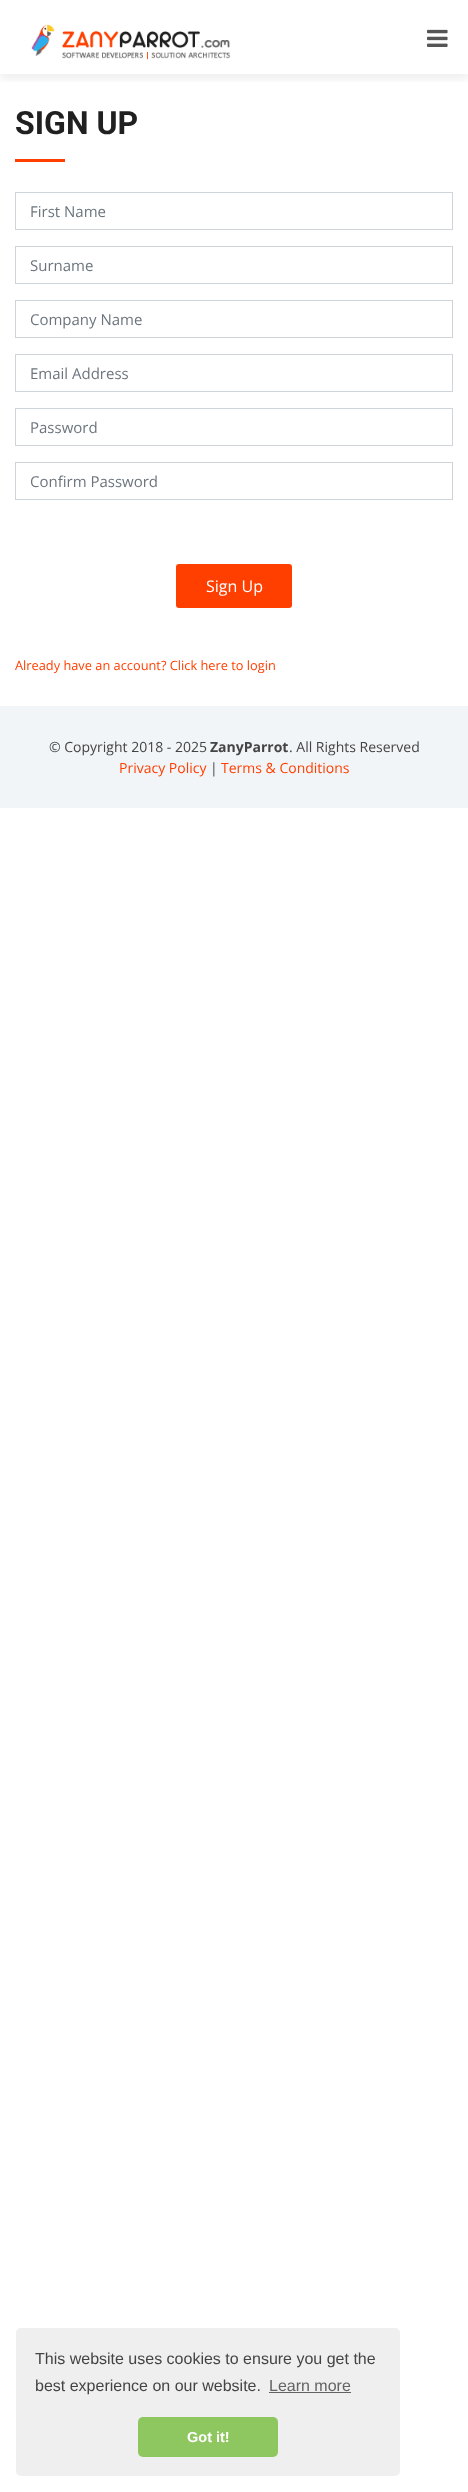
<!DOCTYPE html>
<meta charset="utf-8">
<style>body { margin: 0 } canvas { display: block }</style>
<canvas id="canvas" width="468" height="2492"></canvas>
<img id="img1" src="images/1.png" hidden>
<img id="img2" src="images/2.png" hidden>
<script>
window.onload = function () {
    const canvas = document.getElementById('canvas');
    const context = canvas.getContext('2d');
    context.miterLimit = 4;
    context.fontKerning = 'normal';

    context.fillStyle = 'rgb(255, 255, 255)';
    context.fillRect(0, 0, 468, 2492);
    context.save();
    context.beginPath();
    context.rect(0, 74, 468, 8);
    context.clip();
    context.fillStyle = 'rgba(0, 0, 0, 0.06)';
    context.filter = 'blur(4.5px)';
    context.beginPath();
    context.rect(0, 6, 468, 74);
    context.fill();
    context.filter = 'none';
    context.restore();
    context.drawImage(document.getElementById('img1'), 31, 24, 200, 36);
    context.drawImage(document.getElementById('img2'), 427, 29, 21, 18);
    context.fillStyle = 'rgb(255, 63, 0)';
    context.fillRect(15, 159, 50, 3);
    context.strokeStyle = 'rgb(206, 212, 218)';
    context.strokeRect(15.5, 192.5, 437, 37);
    context.strokeRect(15.5, 246.5, 437, 37);
    context.strokeRect(15.5, 300.5, 437, 37);
    context.strokeRect(15.5, 354.5, 437, 37);
    context.strokeRect(15.5, 408.5, 437, 37);
    context.strokeRect(15.5, 462.5, 437, 37);
    context.beginPath();
    context.roundRect(176, 564, 116, 44, 3);
    context.fill();
    context.fillStyle = 'rgb(242, 245, 248)';
    context.fillRect(0, 706, 468, 102);
    context.fillStyle = 'rgb(239, 239, 239)';
    context.beginPath();
    context.roundRect(16, 2328, 384, 148, 5);
    context.fill();
    context.fillStyle = 'rgb(99, 99, 99)';
    context.fillRect(269, 2392, 82, 1);
    context.fillStyle = 'rgb(142, 199, 96)';
    context.beginPath();
    context.roundRect(138, 2417, 140, 40, 5);
    context.fill();
    context.font = 'bold 32px Roboto';
    context.fillStyle = 'rgb(32, 32, 32)';
    context.fillText('SIGN UP', 15, 134);
    context.font = '15px Open Sans';
    context.fillStyle = 'rgb(108, 117, 125)';
    context.fillText('First Name', 30, 217);
    context.fillText('Surname', 30, 271);
    context.fillText('Company Name', 30, 325);
    context.fillText('Email Address', 30, 379);
    context.fillText('Password', 30, 433);
    context.fillText('Confirm Password', 30, 487);
    context.font = '16px Open Sans';
    context.fillStyle = 'rgb(255, 255, 255)';
    context.fillText('Sign Up', 206, 592);
    context.font = '12.8px Open Sans';
    context.fillStyle = 'rgb(255, 63, 0)';
    context.fillText('Already have an account? Click here to login', 15, 670);
    context.font = '14px Open Sans';
    context.fillStyle = 'rgb(68, 68, 68)';
    context.fillText('© Copyright 2018 - 2025', 49, 752);
    context.font = 'bold 14px Open Sans';
    context.fillText('ZanyParrot', 210, 752);
    context.font = '14px Open Sans';
    context.fillText('. All Rights Reserved', 289, 752);
    context.fillStyle = 'rgb(255, 63, 0)';
    context.fillText('Privacy Policy', 119, 773);
    context.fillStyle = 'rgb(68, 68, 68)';
    context.fillText('|', 210, 773);
    context.fillStyle = 'rgb(255, 63, 0)';
    context.fillText('Terms & Conditions', 221, 773);
    context.font = '16px Liberation Sans';
    context.fillStyle = 'rgb(68, 68, 68)';
    context.fillText('This website uses cookies to ensure you get the', 35, 2364);
    context.fillText('best experience on our website.', 35, 2391);
    context.fillStyle = 'rgb(99, 99, 99)';
    context.fillText('Learn more', 269, 2391);
    context.font = 'bold 14.5px Liberation Sans';
    context.fillStyle = 'rgb(255, 255, 255)';
    context.fillText('Got it!', 187, 2442);
};
</script>
